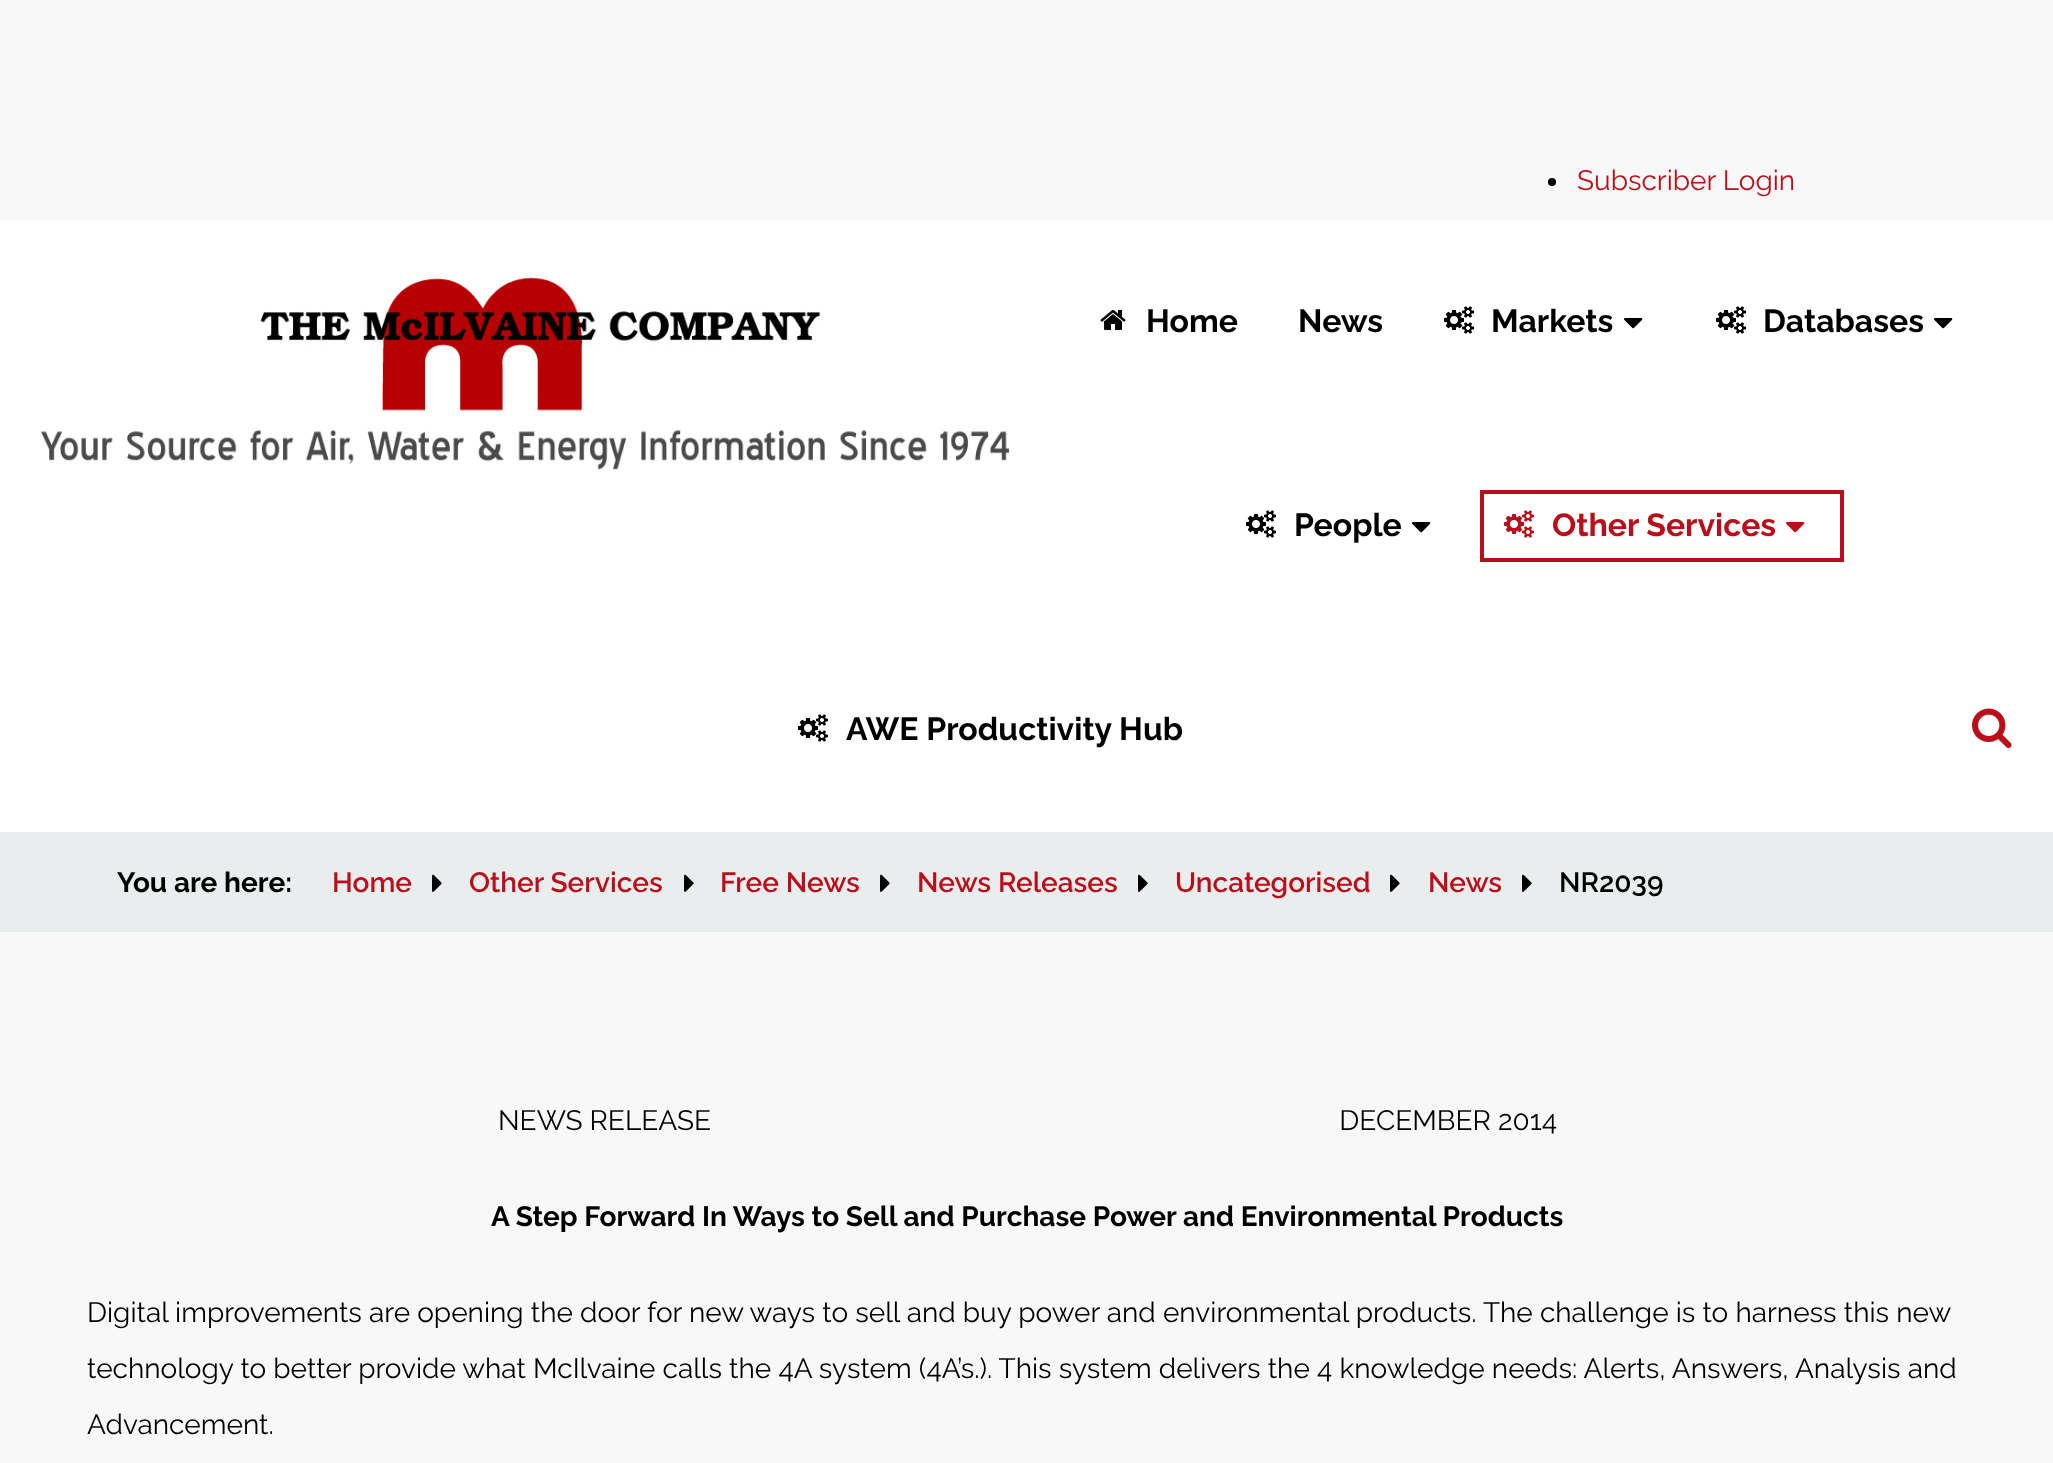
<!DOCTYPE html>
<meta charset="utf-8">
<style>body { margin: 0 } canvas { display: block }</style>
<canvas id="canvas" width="2053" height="1463"></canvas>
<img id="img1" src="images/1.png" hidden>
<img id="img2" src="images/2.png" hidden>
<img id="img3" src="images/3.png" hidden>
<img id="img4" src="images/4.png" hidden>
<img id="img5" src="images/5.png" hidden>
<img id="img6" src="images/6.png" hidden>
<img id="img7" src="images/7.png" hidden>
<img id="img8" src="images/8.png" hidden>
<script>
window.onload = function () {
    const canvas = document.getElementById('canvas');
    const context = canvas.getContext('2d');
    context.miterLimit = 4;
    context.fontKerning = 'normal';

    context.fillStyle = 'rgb(248, 248, 248)';
    context.fillRect(0, 0, 2053, 1463);
    context.fillStyle = 'rgb(0, 0, 0)';
    context.beginPath();
    context.arc(1552, 182, 4, 0, 2 * Math.PI);
    context.fill();
    context.fillStyle = 'rgb(255, 255, 255)';
    context.fillRect(0, 220, 2053, 612);
    context.drawImage(document.getElementById('img1'), 41, 277, 969, 193);
    context.drawImage(document.getElementById('img2'), 1100, 310, 26, 20);
    context.drawImage(document.getElementById('img3'), 1444, 306, 30, 28);
    context.drawImage(document.getElementById('img4'), 1624, 318, 19, 11);
    context.drawImage(document.getElementById('img3'), 1716, 306, 30, 28);
    context.drawImage(document.getElementById('img4'), 1934, 318, 19, 11);
    context.drawImage(document.getElementById('img3'), 1246, 510, 30, 28);
    context.drawImage(document.getElementById('img4'), 1412, 522, 19, 11);
    context.strokeStyle = 'rgb(186, 15, 26)';
    context.lineWidth = 4;
    context.strokeRect(1482, 492, 360, 68);
    context.drawImage(document.getElementById('img5'), 1504, 510, 30, 28);
    context.drawImage(document.getElementById('img6'), 1786, 522, 19, 11);
    context.drawImage(document.getElementById('img3'), 798, 714, 30, 28);
    context.drawImage(document.getElementById('img7'), 1972, 708, 40, 41);
    context.fillStyle = 'rgb(234, 237, 238)';
    context.fillRect(0, 832, 2053, 100);
    context.drawImage(document.getElementById('img8'), 432, 874, 10, 18);
    context.drawImage(document.getElementById('img8'), 684, 874, 10, 18);
    context.drawImage(document.getElementById('img8'), 880, 874, 10, 18);
    context.drawImage(document.getElementById('img8'), 1138, 874, 10, 18);
    context.drawImage(document.getElementById('img8'), 1390, 874, 10, 18);
    context.drawImage(document.getElementById('img8'), 1522, 874, 10, 18);
    context.font = '28px Raleway';
    context.fillStyle = 'rgb(186, 15, 26)';
    context.fillText('Subscriber Login', 1577, 190);
    context.font = 'bold 32px Raleway';
    context.fillStyle = 'rgb(0, 0, 0)';
    context.fillText('Home', 1146, 332);
    context.fillText('News', 1298, 332);
    context.fillText('Markets', 1491, 332);
    context.fillText('Databases', 1763, 332);
    context.fillText('People', 1294, 536);
    context.fillStyle = 'rgb(186, 15, 26)';
    context.fillText('Other Services', 1552, 536);
    context.fillStyle = 'rgb(0, 0, 0)';
    context.fillText('AWE Productivity Hub', 846, 740);
    context.font = 'bold 28px Raleway';
    context.fillText('You are here:', 117, 892);
    context.font = '600 28px Raleway';
    context.fillStyle = 'rgb(186, 15, 26)';
    context.fillText('Home', 332, 892);
    context.fillText('Other Services', 469, 892);
    context.fillText('Free News', 720, 892);
    context.fillText('News Releases', 917, 892);
    context.fillText('Uncategorised', 1175, 892);
    context.fillText('News', 1428, 892);
    context.fillStyle = 'rgb(0, 0, 0)';
    context.fillText('NR2039', 1559, 892);
    context.font = '28px Raleway';
    context.fillText('NEWS RELEASE                                                                                        DECEMBER 2014', 498, 1130);
    context.font = 'bold 28px Raleway';
    context.fillText('A Step Forward In Ways to Sell and Purchase Power and Environmental Products', 491, 1226);
    context.font = '28px Raleway';
    context.fillText('Digital improvements are opening the door for new ways to sell and buy power and environmental products. The challenge is to harness this new', 87, 1322);
    context.fillText('technology to better provide what McIlvaine calls the 4A system (4A’s.). This system delivers the 4 knowledge needs: Alerts, Answers, Analysis and', 87, 1378);
    context.fillText('Advancement.', 87, 1434);
};
</script>
